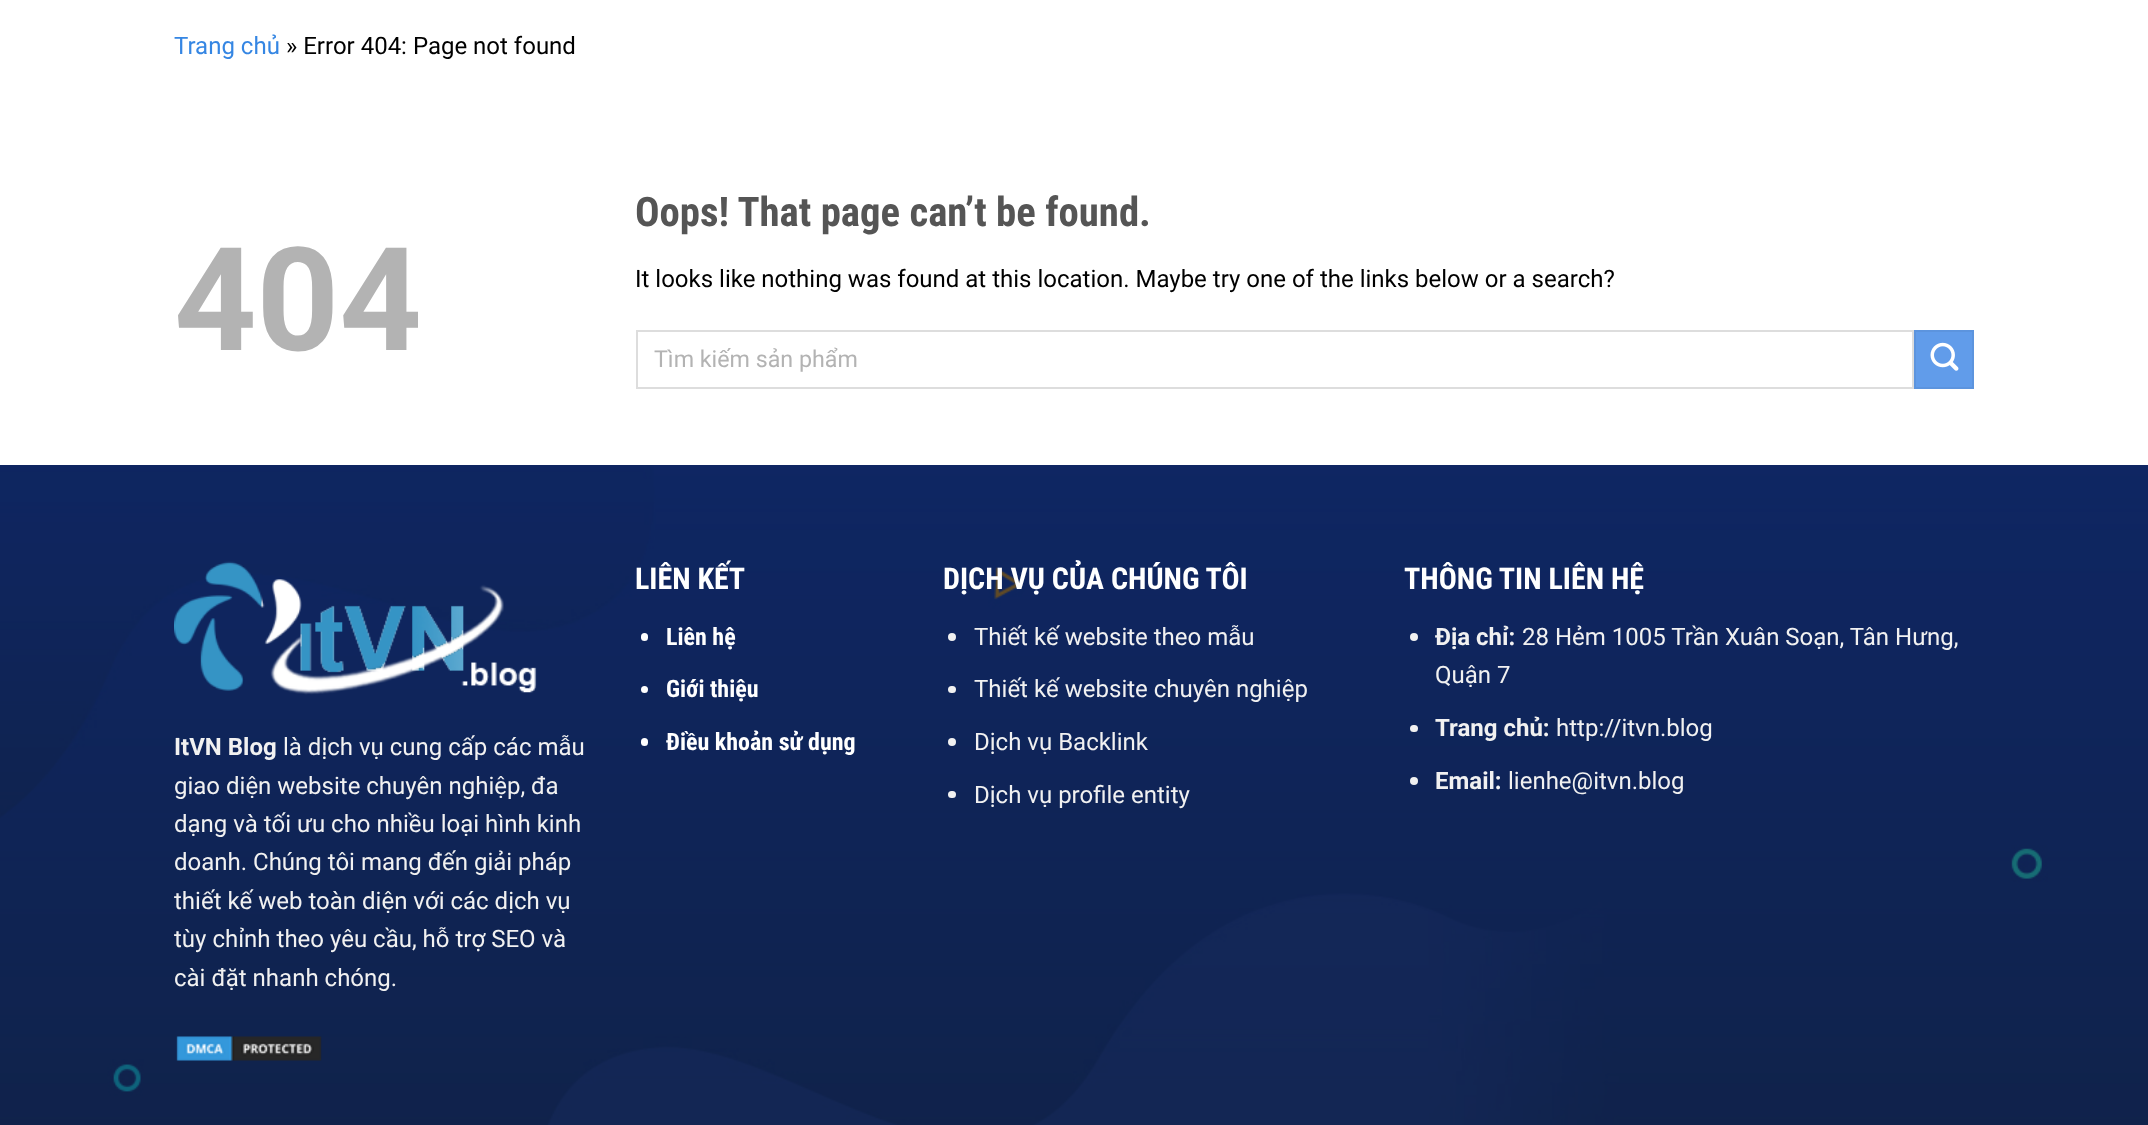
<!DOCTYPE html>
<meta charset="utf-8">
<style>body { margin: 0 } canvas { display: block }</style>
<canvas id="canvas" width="2148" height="1125"></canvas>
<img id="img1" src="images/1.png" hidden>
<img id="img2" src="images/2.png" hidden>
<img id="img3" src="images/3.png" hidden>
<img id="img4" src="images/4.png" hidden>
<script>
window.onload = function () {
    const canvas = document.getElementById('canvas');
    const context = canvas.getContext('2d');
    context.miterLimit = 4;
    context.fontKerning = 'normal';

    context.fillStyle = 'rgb(255, 255, 255)';
    context.fillRect(0, 0, 2148, 1125);
    context.strokeStyle = 'rgb(221, 221, 221)';
    context.lineWidth = 2;
    context.strokeRect(637, 331, 1276, 57);
    context.fillStyle = 'rgb(97, 156, 234)';
    context.beginPath();
    context.rect(1915, 331, 58, 57);
    context.fill();
    context.strokeStyle = 'rgb(92, 148, 222)';
    context.stroke();
    context.drawImage(document.getElementById('img1'), 1930, 342, 29, 29);
    context.drawImage(document.getElementById('img2'), 0, 465, 2148, 660);
    context.fillStyle = 'rgb(255, 255, 255)';
    context.beginPath();
    context.roundRect(641, 633, 7, 8, 3.5);
    context.fill();
    context.beginPath();
    context.arc(644.5, 689.5, 3.5, 0, 2 * Math.PI);
    context.fill();
    context.beginPath();
    context.roundRect(641, 738, 7, 8, 3.5);
    context.fill();
    context.fillStyle = 'rgb(241, 241, 241)';
    context.beginPath();
    context.arc(952, 637, 4, 0, 2 * Math.PI);
    context.fill();
    context.beginPath();
    context.roundRect(948, 686, 8, 7, 3.5);
    context.fill();
    context.beginPath();
    context.arc(952, 742, 4, 0, 2 * Math.PI);
    context.fill();
    context.beginPath();
    context.roundRect(948, 791, 8, 7, 3.5);
    context.fill();
    context.beginPath();
    context.arc(1414, 637, 4, 0, 2 * Math.PI);
    context.fill();
    context.beginPath();
    context.roundRect(1410, 725, 8, 7, 3.5);
    context.fill();
    context.beginPath();
    context.arc(1414, 781, 4, 0, 2 * Math.PI);
    context.fill();
    context.drawImage(document.getElementById('img3'), 174, 561, 363, 134);
    context.drawImage(document.getElementById('img4'), 176, 1036, 146, 25);
    context.font = '24px Roboto';
    context.fillStyle = 'rgb(53, 134, 227)';
    context.fillText('Trang chủ', 174, 54);
    context.fillStyle = 'rgb(0, 0, 0)';
    context.fillText('» Error 404: Page not found', 286, 54);
    context.font = 'bold 144px Roboto';
    context.fillStyle = 'rgb(179, 179, 179)';
    context.fillText('404', 174, 350);
    context.font = 'bold 40.75px Roboto Condensed';
    context.fillStyle = 'rgb(85, 85, 85)';
    context.fillText('Oops! That page can’t be found.', 635, 226);
    context.font = '24px Roboto';
    context.fillStyle = 'rgb(0, 0, 0)';
    context.fillText('It looks like nothing was found at this location. Maybe try one of the links below or a search?', 635, 287);
    context.font = '23.25px Roboto';
    context.fillStyle = 'rgb(179, 179, 179)';
    context.fillText('Tìm kiếm sản phẩm', 654, 367);
    context.font = 'bold 30px Roboto Condensed';
    context.fillStyle = 'rgb(255, 255, 255)';
    context.fillText('LIÊN KẾT', 635, 589);
    context.font = 'bold 24px Roboto Condensed';
    context.fillText('Liên hệ', 666, 645);
    context.fillText('Giới thiệu', 666, 697);
    context.fillText('Điều khoản sử dụng', 666, 750);
    context.font = 'bold 30px Roboto Condensed';
    context.fillText('DỊCH VỤ CỦA CHÚNG TÔI', 943, 589);
    context.font = '24px Roboto';
    context.fillStyle = 'rgb(241, 241, 241)';
    context.fillText('Thiết kế website theo mẫu', 974, 645);
    context.fillText('Thiết kế website chuyên nghiệp', 974, 697);
    context.fillText('Dịch vụ Backlink', 974, 750);
    context.fillText('Dịch vụ profile entity', 974, 803);
    context.font = 'bold 30px Roboto Condensed';
    context.fillStyle = 'rgb(255, 255, 255)';
    context.fillText('THÔNG TIN LIÊN HỆ', 1404, 589);
    context.font = 'bold 24px Roboto';
    context.fillStyle = 'rgb(241, 241, 241)';
    context.fillText('Địa chỉ:', 1435, 645);
    context.font = '24px Roboto';
    context.fillText('28 Hẻm 1005 Trần Xuân Soạn, Tân Hưng,', 1522, 645);
    context.fillText('Quận 7', 1435, 683);
    context.font = 'bold 24px Roboto';
    context.fillText('Trang chủ:', 1435, 736);
    context.font = '24px Roboto';
    context.fillText('http://itvn.blog', 1556, 736);
    context.font = 'bold 24px Roboto';
    context.fillText('Email:', 1435, 789);
    context.font = '24px Roboto';
    context.fillText('lienhe@itvn.blog', 1508, 789);
    context.font = 'bold 24px Roboto';
    context.fillText('ItVN Blog', 174, 755);
    context.font = '24px Roboto';
    context.fillText('là dịch vụ cung cấp các mẫu', 283, 755);
    context.fillText('giao diện website chuyên nghiệp, đa', 174, 794);
    context.fillText('dạng và tối ưu cho nhiều loại hình kinh', 174, 832);
    context.fillText('doanh. Chúng tôi mang đến giải pháp', 174, 870);
    context.fillText('thiết kế web toàn diện với các dịch vụ', 174, 909);
    context.fillText('tùy chỉnh theo yêu cầu, hỗ trợ SEO và', 174, 947);
    context.fillText('cài đặt nhanh chóng.', 174, 986);
};
</script>
